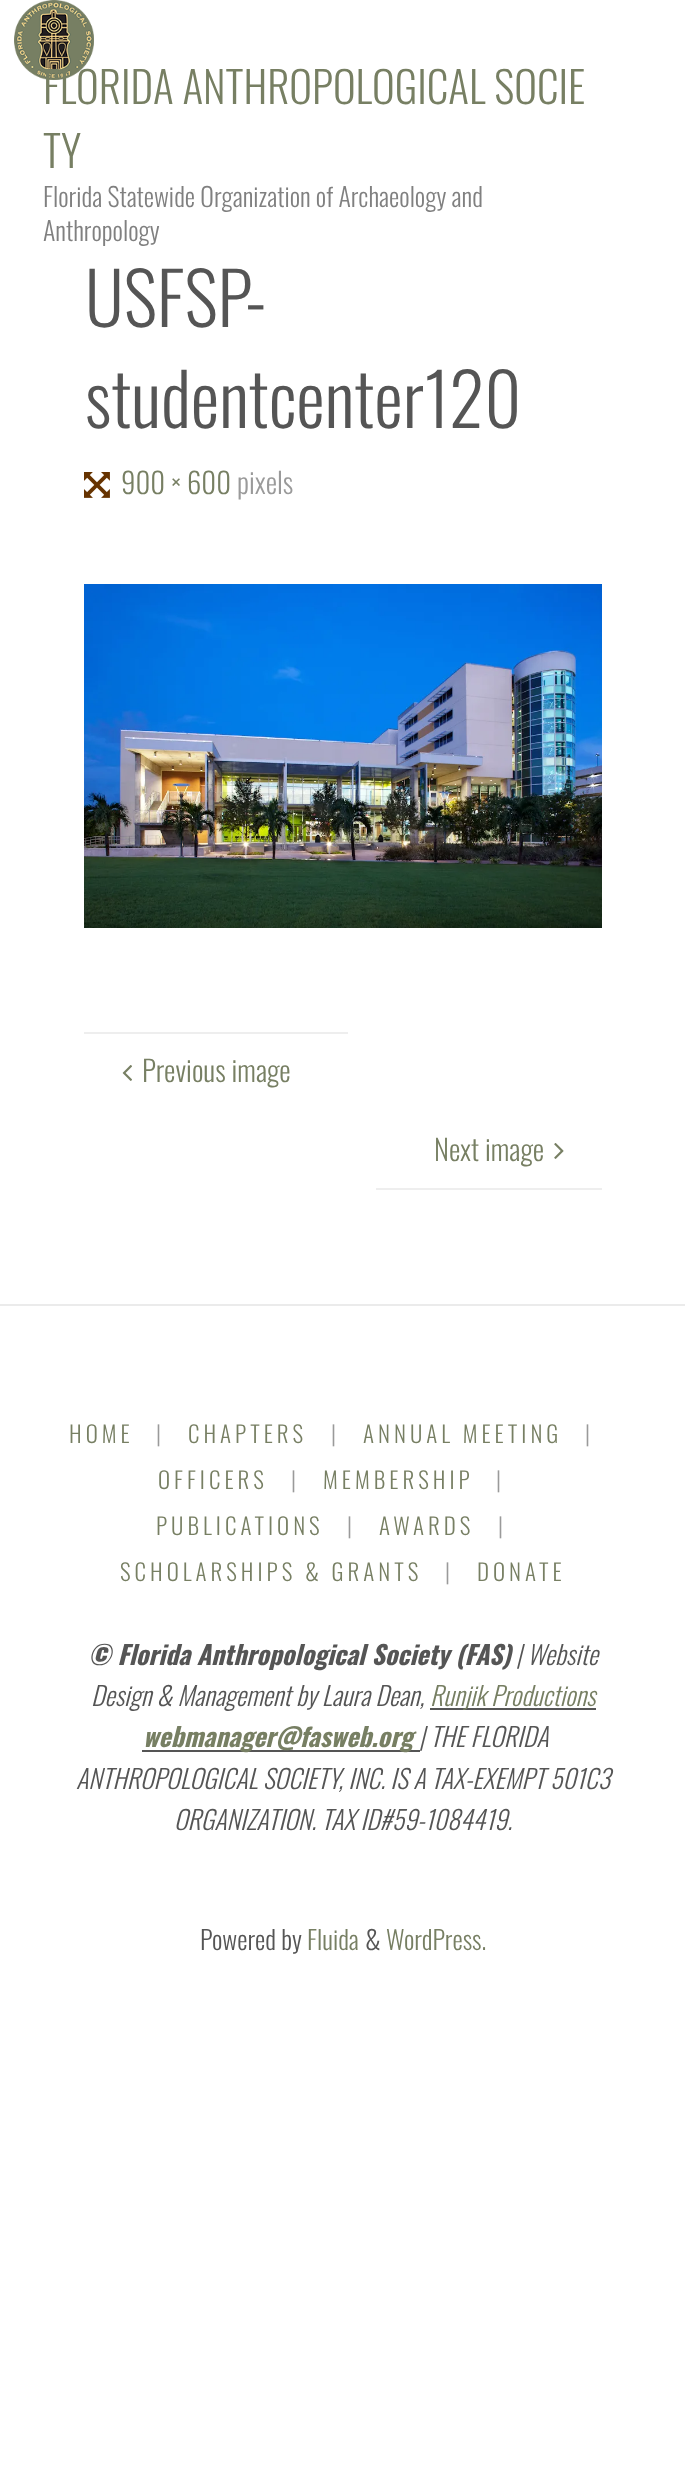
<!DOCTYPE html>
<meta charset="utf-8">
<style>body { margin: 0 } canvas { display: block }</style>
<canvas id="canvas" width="685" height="2485"></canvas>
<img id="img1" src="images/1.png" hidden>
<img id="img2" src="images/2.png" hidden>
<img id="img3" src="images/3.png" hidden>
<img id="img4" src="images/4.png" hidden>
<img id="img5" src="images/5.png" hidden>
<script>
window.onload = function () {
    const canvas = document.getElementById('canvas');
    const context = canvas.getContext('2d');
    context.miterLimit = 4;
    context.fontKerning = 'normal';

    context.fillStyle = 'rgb(255, 255, 255)';
    context.fillRect(0, 0, 685, 2485);
    context.drawImage(document.getElementById('img1'), 14, 0, 80, 80);
    context.drawImage(document.getElementById('img2'), 84, 472, 26, 26);
    context.drawImage(document.getElementById('img3'), 84, 584, 518, 344);
    context.fillStyle = 'rgb(238, 238, 238)';
    context.fillRect(84, 1032, 264, 2);
    context.drawImage(document.getElementById('img4'), 122, 1065, 10, 16);
    context.drawImage(document.getElementById('img5'), 554, 1143, 10, 16);
    context.fillRect(376, 1188, 226, 2);
    context.fillStyle = 'rgb(235, 235, 235)';
    context.fillRect(0, 1304, 685, 2);
    context.fillStyle = 'rgb(85, 85, 85)';
    context.fillRect(430, 1708, 166, 2);
    context.fillRect(142, 1750, 278, 2);
    context.font = '300 43.25px Oswald';
    context.fillStyle = 'rgb(119, 127, 99)';
    context.fillText('FLORIDA ANTHROPOLOGICAL SOCIE', 43, 104);
    context.fillText('TY', 43, 168);
    context.font = '300 25.9px Oswald';
    context.fillStyle = 'rgb(128, 128, 128)';
    context.fillText('Florida Statewide Organization of Archaeology and', 43, 207);
    context.fillText('Anthropology', 43, 241);
    context.font = '300 72px Oswald';
    context.fillStyle = 'rgb(85, 85, 85)';
    context.fillText('USFSP-', 85, 327);
    context.fillText('studentcenter120', 85, 428);
    context.font = '300 28.75px Oswald';
    context.fillStyle = 'rgb(119, 127, 99)';
    context.fillText('900 × 600', 121, 494);
    context.fillStyle = 'rgb(154, 154, 154)';
    context.fillText('pixels', 237, 494);
    context.fillStyle = 'rgb(119, 127, 99)';
    context.fillText('Previous image', 142, 1082);
    context.fillText('Next image', 434, 1161);
    context.letterSpacing = '4px';
    context.font = '300 23px Oswald';
    context.fillText('HOME', 69, 1443);
    context.fillStyle = 'rgb(154, 154, 154)';
    context.fillText('|', 156, 1443);
    context.fillStyle = 'rgb(119, 127, 99)';
    context.fillText('CHAPTERS', 188, 1443);
    context.fillStyle = 'rgb(154, 154, 154)';
    context.fillText('|', 331, 1443);
    context.fillStyle = 'rgb(119, 127, 99)';
    context.fillText('ANNUAL MEETING', 363, 1443);
    context.fillStyle = 'rgb(154, 154, 154)';
    context.fillText('|', 585, 1443);
    context.fillStyle = 'rgb(119, 127, 99)';
    context.fillText('OFFICERS', 158, 1489);
    context.fillStyle = 'rgb(154, 154, 154)';
    context.fillText('|', 291, 1489);
    context.fillStyle = 'rgb(119, 127, 99)';
    context.fillText('MEMBERSHIP', 323, 1489);
    context.fillStyle = 'rgb(154, 154, 154)';
    context.fillText('|', 496, 1489);
    context.fillStyle = 'rgb(119, 127, 99)';
    context.fillText('PUBLICATIONS', 156, 1535);
    context.fillStyle = 'rgb(154, 154, 154)';
    context.fillText('|', 347, 1535);
    context.fillStyle = 'rgb(119, 127, 99)';
    context.fillText('AWARDS', 379, 1535);
    context.fillStyle = 'rgb(154, 154, 154)';
    context.fillText('|', 498, 1535);
    context.fillStyle = 'rgb(119, 127, 99)';
    context.fillText('SCHOLARSHIPS & GRANTS', 120, 1581);
    context.fillStyle = 'rgb(154, 154, 154)';
    context.fillText('|', 445, 1581);
    context.fillStyle = 'rgb(119, 127, 99)';
    context.fillText('DONATE', 477, 1581);
    context.letterSpacing = '0px';
    context.font = 'italic bold 25.9px Oswald';
    context.fillStyle = 'rgb(85, 85, 85)';
    context.fillText('© Florida Anthropological Society (FAS)', 88, 1665);
    context.font = 'italic 300 25.9px Oswald';
    context.fillText('| Website', 516, 1665);
    context.fillText('Design & Management by Laura Dean,', 91, 1706);
    context.fillStyle = 'rgb(119, 127, 99)';
    context.fillText('Runjik Productions', 430, 1706);
    context.font = 'italic bold 25.9px Oswald';
    context.fillText('webmanager@fasweb.org', 143, 1747);
    context.font = 'italic 300 25.9px Oswald';
    context.fillStyle = 'rgb(85, 85, 85)';
    context.fillText('| THE FLORIDA', 419, 1747);
    context.fillText('ANTHROPOLOGICAL SOCIETY, INC. IS A TAX-EXEMPT 501C3', 76, 1789);
    context.fillText('ORGANIZATION. TAX ID#59-1084419.', 174, 1830);
    context.font = '300 25.9px Oswald';
    context.fillText('Powered by', 200, 1950);
    context.fillStyle = 'rgb(119, 127, 99)';
    context.fillText('Fluida', 307, 1950);
    context.fillStyle = 'rgb(85, 85, 85)';
    context.fillText('&', 365, 1950);
    context.fillStyle = 'rgb(119, 127, 99)';
    context.fillText('WordPress.', 386, 1950);
};
</script>
